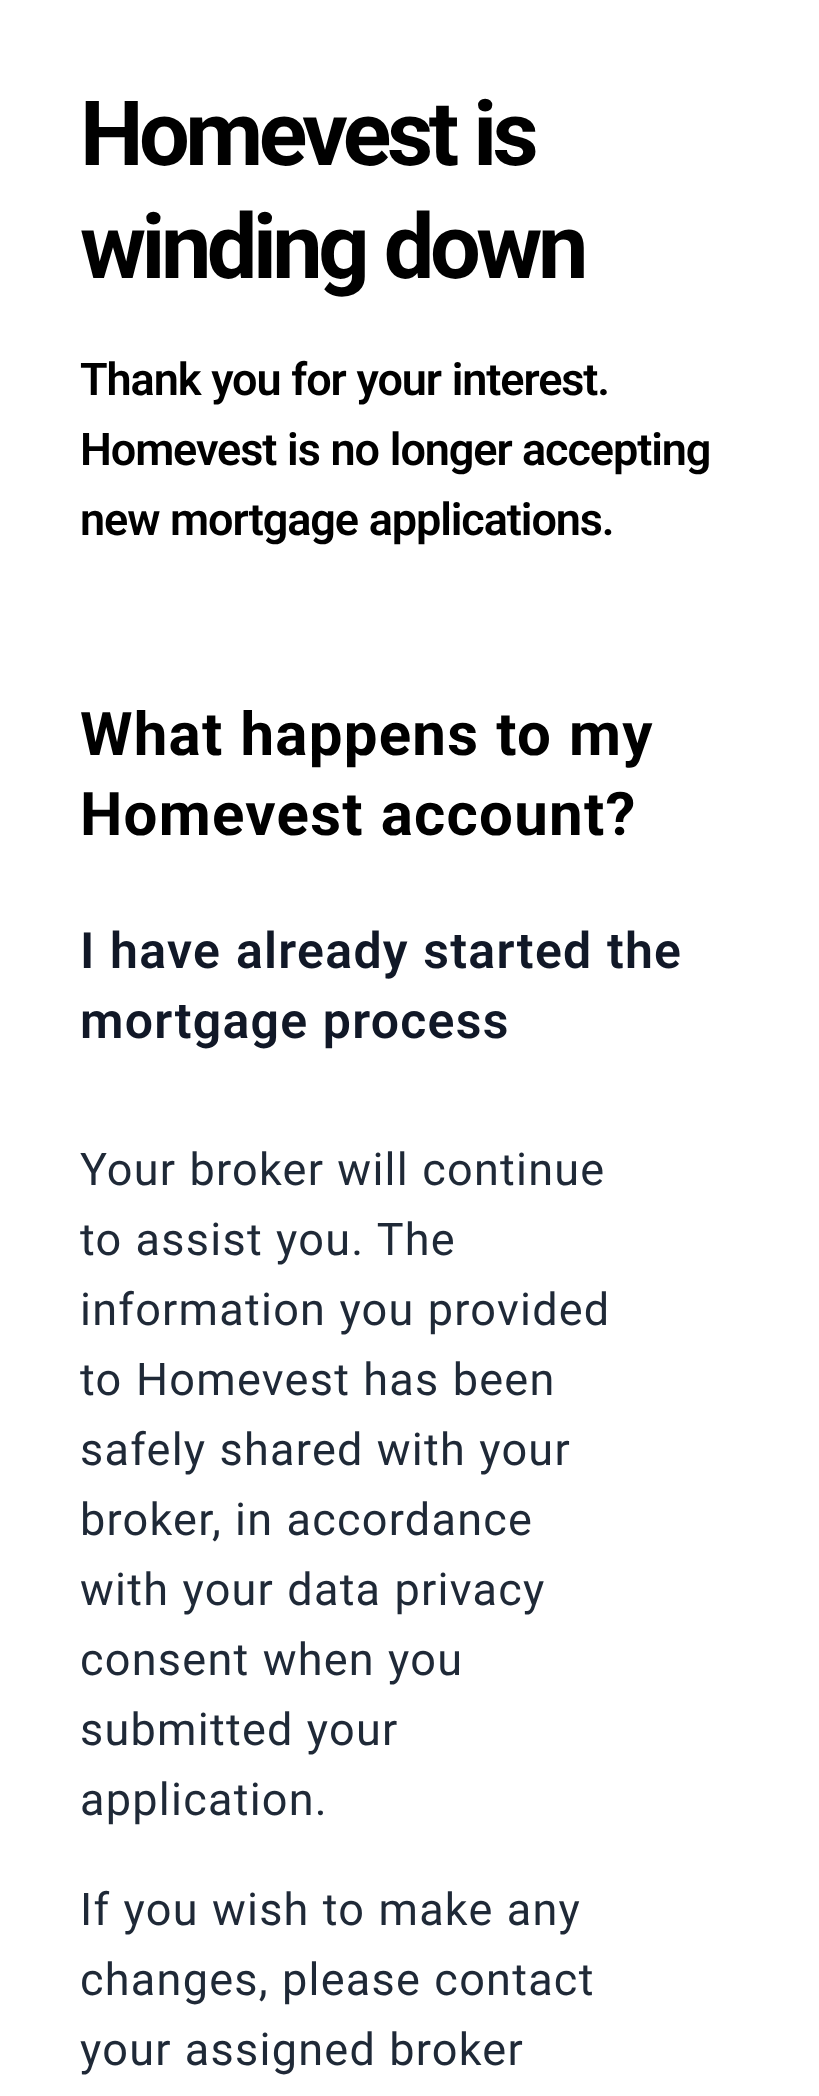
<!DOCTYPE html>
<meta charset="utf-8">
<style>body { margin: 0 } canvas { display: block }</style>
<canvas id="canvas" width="819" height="2096"></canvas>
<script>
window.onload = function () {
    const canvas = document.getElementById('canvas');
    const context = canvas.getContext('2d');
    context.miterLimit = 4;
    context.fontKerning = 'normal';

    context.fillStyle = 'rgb(255, 255, 255)';
    context.fillRect(0, 0, 819, 2096);
    context.letterSpacing = '-4.5px';
    context.wordSpacing = '0.75px';
    context.font = 'bold 90px Roboto';
    context.fillStyle = 'rgb(0, 0, 0)';
    context.fillText('Homevest is', 80, 165);
    context.fillText('winding down', 80, 278);
    context.letterSpacing = '-1.1px';
    context.font = '600 45px Roboto';
    context.fillText('Thank you for your interest.', 80, 395);
    context.fillText('Homevest is no longer', 80, 465);
    context.wordSpacing = '0px';
    context.fillText('accepting', 522, 465);
    context.wordSpacing = '0.75px';
    context.fillText('new mortgage applications.', 80, 535);
    context.letterSpacing = '1.25px';
    context.font = 'bold 60px Roboto';
    context.fillText('What happens to', 80, 755);
    context.wordSpacing = '0px';
    context.fillText('my', 569, 755);
    context.wordSpacing = '0.75px';
    context.fillText('Homevest account?', 80, 835);
    context.font = '600 50px Roboto';
    context.fillStyle = 'rgb(17, 24, 39)';
    context.fillText('I have', 80, 968);
    context.fillText('already started the', 236, 968);
    context.fillText('mortgage process', 80, 1038);
    context.font = '45px Roboto';
    context.fillStyle = 'rgb(31, 41, 55)';
    context.fillText('Your broker will continue', 80, 1185);
    context.fillText('to assist you. The', 80, 1255);
    context.fillText('information you provided', 80, 1325);
    context.wordSpacing = '0px';
    context.fillText('to', 80, 1395);
    context.wordSpacing = '0.75px';
    context.fillText('Homevest has been', 136, 1395);
    context.fillText('safely shared with your', 80, 1465);
    context.wordSpacing = '0px';
    context.fillText('broker,', 80, 1535);
    context.wordSpacing = '0.75px';
    context.fillText('in accordance', 235, 1535);
    context.fillText('with your data privacy', 80, 1605);
    context.fillText('consent when you', 80, 1675);
    context.fillText('submitted your', 80, 1745);
    context.wordSpacing = '0px';
    context.fillText('application.', 80, 1815);
    context.wordSpacing = '0.75px';
    context.fillText('If you wish to make any', 80, 1925);
    context.fillText('changes, please contact', 80, 1995);
    context.fillText('your assigned broker', 80, 2065);
};
</script>
